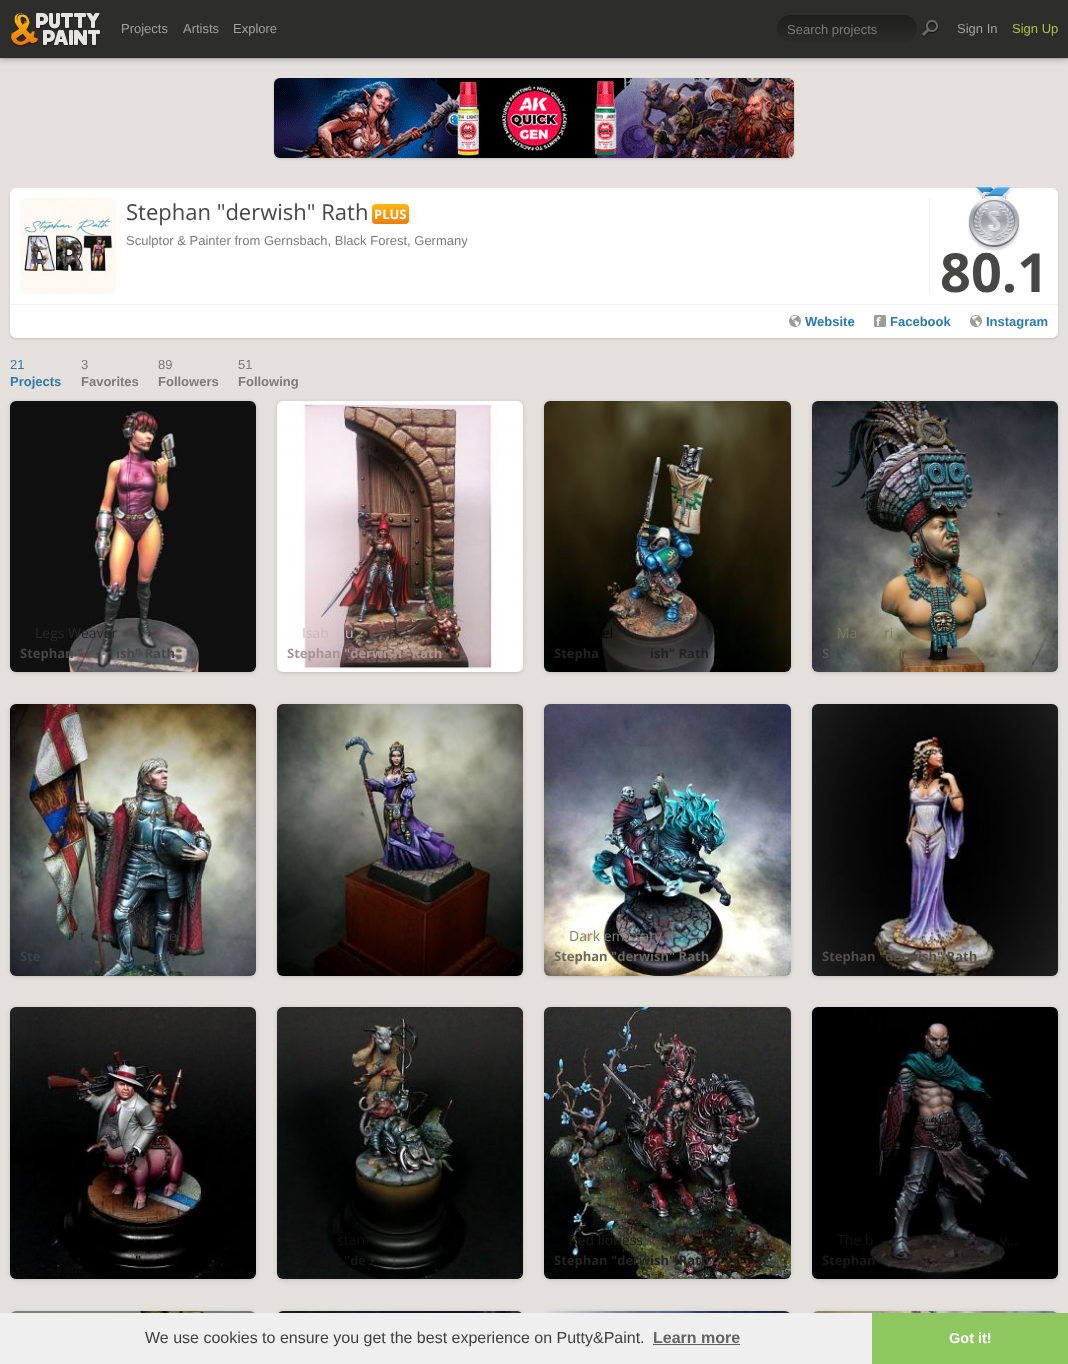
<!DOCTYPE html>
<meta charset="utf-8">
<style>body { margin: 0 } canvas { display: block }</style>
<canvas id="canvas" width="1068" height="1364"></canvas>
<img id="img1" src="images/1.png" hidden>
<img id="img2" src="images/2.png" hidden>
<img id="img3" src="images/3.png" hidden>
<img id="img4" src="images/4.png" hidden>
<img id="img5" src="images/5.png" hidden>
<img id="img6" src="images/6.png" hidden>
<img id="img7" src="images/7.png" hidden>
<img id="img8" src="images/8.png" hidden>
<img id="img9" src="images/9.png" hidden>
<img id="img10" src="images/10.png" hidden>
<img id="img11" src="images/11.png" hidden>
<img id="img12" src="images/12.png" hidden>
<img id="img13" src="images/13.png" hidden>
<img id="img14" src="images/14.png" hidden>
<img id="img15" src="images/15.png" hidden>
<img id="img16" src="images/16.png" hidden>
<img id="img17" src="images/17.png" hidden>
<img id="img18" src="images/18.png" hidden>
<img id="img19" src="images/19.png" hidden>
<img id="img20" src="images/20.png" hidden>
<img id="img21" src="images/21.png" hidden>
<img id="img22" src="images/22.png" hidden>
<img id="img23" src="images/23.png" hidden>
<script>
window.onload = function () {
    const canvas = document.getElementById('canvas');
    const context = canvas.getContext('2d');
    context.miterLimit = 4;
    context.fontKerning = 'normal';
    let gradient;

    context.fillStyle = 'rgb(228, 225, 221)';
    context.fillRect(0, 0, 1068, 1364);
    context.fillStyle = 'rgba(0, 0, 0, 0.1)';
    context.filter = 'blur(0.5px)';
    context.beginPath();
    context.rect(0, 1, 1068, 58);
    context.fill();
    context.filter = 'none';
    context.fillStyle = 'rgba(0, 0, 0, 0.3)';
    context.filter = 'blur(3px)';
    context.beginPath();
    context.rect(0, 1, 1068, 58);
    context.fill();
    context.filter = 'none';
    context.fillStyle = 'rgb(45, 45, 44)';
    context.fillRect(0, 0, 1068, 58);
    context.drawImage(document.getElementById('img1'), 11, 13, 90, 33);
    gradient = context.createLinearGradient(847, 15, 847, 42);
    gradient.addColorStop(0, 'rgb(30, 30, 29)');
    gradient.addColorStop(1, 'rgb(43, 43, 42)');
    context.fillStyle = gradient;
    context.beginPath();
    context.roundRect(777, 15, 140, 27, 13.5);
    context.fill();
    context.drawImage(document.getElementById('img2'), 922, 20, 17, 17);
    context.fillStyle = 'rgba(0, 0, 0, 0.15)';
    context.filter = 'blur(1px)';
    context.beginPath();
    context.roundRect(274, 79, 520, 80, 6);
    context.fill();
    context.filter = 'none';
    context.drawImage(document.getElementById('img3'), 274, 78, 520, 80);
    context.filter = 'blur(1px)';
    context.beginPath();
    context.roundRect(10, 189, 1048, 150, 6);
    context.fill();
    context.filter = 'none';
    context.fillStyle = 'rgb(255, 255, 255)';
    context.beginPath();
    context.roundRect(10.5, 188.5, 1047, 149, 5.5);
    context.fill();
    context.strokeStyle = 'rgb(255, 255, 255)';
    context.stroke();
    context.drawImage(document.getElementById('img4'), 20, 198, 96, 96);
    gradient = context.createLinearGradient(391, 204, 391, 224);
    gradient.addColorStop(0, 'rgb(255, 184, 18)');
    gradient.addColorStop(1, 'rgb(237, 124, 13)');
    context.fillStyle = gradient;
    context.beginPath();
    context.roundRect(372, 204, 37, 20, 4);
    context.fill();
    context.fillStyle = 'rgb(240, 240, 240)';
    context.fillRect(929, 198, 1, 96);
    context.drawImage(document.getElementById('img5'), 968, 187, 52, 64);
    context.fillRect(10, 304, 1048, 1);
    context.drawImage(document.getElementById('img6'), 789, 315, 12, 12);
    context.drawImage(document.getElementById('img7'), 874, 315, 12, 12);
    context.drawImage(document.getElementById('img6'), 970, 315, 12, 12);
    context.fillStyle = 'rgba(0, 0, 0, 0.15)';
    context.filter = 'blur(2px)';
    context.beginPath();
    context.roundRect(10, 402, 246, 271, 6);
    context.fill();
    context.filter = 'none';
    context.drawImage(document.getElementById('img8'), 10, 401, 246, 271);
    context.filter = 'blur(2px)';
    context.beginPath();
    context.roundRect(277, 402, 246, 271, 6);
    context.fill();
    context.filter = 'none';
    context.drawImage(document.getElementById('img9'), 277, 401, 246, 271);
    context.filter = 'blur(2px)';
    context.beginPath();
    context.roundRect(544, 402, 247, 271, 6);
    context.fill();
    context.filter = 'none';
    context.drawImage(document.getElementById('img10'), 544, 401, 247, 271);
    context.filter = 'blur(2px)';
    context.beginPath();
    context.roundRect(812, 402, 246, 271, 6);
    context.fill();
    context.filter = 'none';
    context.drawImage(document.getElementById('img11'), 812, 401, 246, 271);
    context.filter = 'blur(2px)';
    context.beginPath();
    context.roundRect(10, 705, 246, 272, 6);
    context.fill();
    context.filter = 'none';
    context.drawImage(document.getElementById('img12'), 10, 704, 246, 272);
    context.filter = 'blur(2px)';
    context.beginPath();
    context.roundRect(277, 705, 246, 272, 6);
    context.fill();
    context.filter = 'none';
    context.drawImage(document.getElementById('img13'), 277, 704, 246, 272);
    context.filter = 'blur(2px)';
    context.beginPath();
    context.roundRect(544, 705, 247, 272, 6);
    context.fill();
    context.filter = 'none';
    context.drawImage(document.getElementById('img14'), 544, 704, 247, 272);
    context.filter = 'blur(2px)';
    context.beginPath();
    context.roundRect(812, 705, 246, 272, 6);
    context.fill();
    context.filter = 'none';
    context.drawImage(document.getElementById('img15'), 812, 704, 246, 272);
    context.filter = 'blur(2px)';
    context.beginPath();
    context.roundRect(10, 1008, 246, 272, 6);
    context.fill();
    context.filter = 'none';
    context.drawImage(document.getElementById('img16'), 10, 1007, 246, 272);
    context.filter = 'blur(2px)';
    context.beginPath();
    context.roundRect(277, 1008, 246, 272, 6);
    context.fill();
    context.filter = 'none';
    context.drawImage(document.getElementById('img17'), 277, 1007, 246, 272);
    context.filter = 'blur(2px)';
    context.beginPath();
    context.roundRect(544, 1008, 247, 272, 6);
    context.fill();
    context.filter = 'none';
    context.drawImage(document.getElementById('img18'), 544, 1007, 247, 272);
    context.filter = 'blur(2px)';
    context.beginPath();
    context.roundRect(812, 1008, 246, 272, 6);
    context.fill();
    context.filter = 'none';
    context.drawImage(document.getElementById('img19'), 812, 1007, 246, 272);
    context.filter = 'blur(2px)';
    context.beginPath();
    context.roundRect(10, 1312, 246, 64, 6);
    context.fill();
    context.filter = 'none';
    context.drawImage(document.getElementById('img20'), 11, 1311, 244, 2);
    context.filter = 'blur(2px)';
    context.beginPath();
    context.roundRect(277, 1312, 246, 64, 6);
    context.fill();
    context.filter = 'none';
    context.drawImage(document.getElementById('img21'), 278, 1311, 244, 2);
    context.filter = 'blur(2px)';
    context.beginPath();
    context.roundRect(544, 1312, 247, 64, 6);
    context.fill();
    context.filter = 'none';
    context.drawImage(document.getElementById('img22'), 545, 1311, 245, 2);
    context.filter = 'blur(2px)';
    context.beginPath();
    context.roundRect(812, 1312, 246, 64, 6);
    context.fill();
    context.filter = 'none';
    context.drawImage(document.getElementById('img23'), 813, 1311, 244, 2);
    context.fillStyle = 'rgb(239, 239, 239)';
    context.fillRect(0, 1313, 872, 51);
    context.fillStyle = 'rgb(99, 99, 99)';
    context.fillRect(653, 1344, 87, 1);
    context.fillStyle = 'rgb(142, 199, 96)';
    context.fillRect(872, 1313, 196, 51);
    context.font = '13px Liberation Sans';
    context.fillStyle = 'rgb(161, 161, 159)';
    context.fillText('Projects', 121, 33);
    context.fillText('Artists', 183, 33);
    context.fillText('Explore', 233, 33);
    context.fillStyle = 'rgb(123, 123, 120)';
    context.fillText('Search projects', 787, 34);
    context.fillStyle = 'rgb(161, 161, 159)';
    context.fillText('Sign In', 957, 33);
    context.fillStyle = 'rgb(167, 196, 68)';
    context.fillText('Sign Up', 1012, 33);
    context.font = '22px Open Sans';
    context.fillStyle = 'rgb(71, 71, 70)';
    context.fillText('Stephan "derwish" Rath', 126, 220);
    context.font = 'bold 13px Open Sans';
    context.fillStyle = 'rgb(255, 255, 255)';
    context.fillText('PLUS', 374, 219);
    context.font = '13px Liberation Sans';
    context.fillStyle = 'rgb(123, 123, 120)';
    context.fillText('Sculptor & Painter from Gernsbach, Black Forest, Germany', 126, 245);
    context.font = 'bold 54px Open Sans';
    context.fillStyle = 'rgb(71, 71, 70)';
    context.fillText('80.1', 940, 292);
    context.font = 'bold 13px Liberation Sans';
    context.fillStyle = 'rgb(44, 121, 172)';
    context.fillText('Website', 805, 326);
    context.fillText('Facebook', 890, 326);
    context.fillText('Instagram', 986, 326);
    context.font = '13px Liberation Sans';
    context.fillText('21', 10, 369);
    context.font = 'bold 13px Liberation Sans';
    context.fillText('Projects', 10, 386);
    context.font = '13px Liberation Sans';
    context.fillStyle = 'rgb(123, 123, 120)';
    context.fillText('3', 81, 369);
    context.font = 'bold 13px Liberation Sans';
    context.fillText('Favorites', 81, 386);
    context.font = '13px Liberation Sans';
    context.fillText('89', 158, 369);
    context.font = 'bold 13px Liberation Sans';
    context.fillText('Followers', 158, 386);
    context.font = '13px Liberation Sans';
    context.fillText('51', 238, 369);
    context.font = 'bold 13px Liberation Sans';
    context.fillText('Following', 238, 386);
    context.font = '14px Open Sans';
    context.fillStyle = 'rgb(41, 41, 41)';
    context.fillText('Legs Weaver', 35, 638);
    context.font = 'bold 13px Open Sans';
    context.fillStyle = 'rgb(71, 71, 70)';
    context.fillText('Stephan "', 20, 658);
    context.fillText('ish" Rath', 116, 658);
    context.font = '14px Open Sans';
    context.fillStyle = 'rgb(203, 185, 188)';
    context.fillText('Isab', 302, 638);
    context.fillText('u', 345, 638);
    context.font = 'bold 13px Open Sans';
    context.fillStyle = 'rgb(172, 149, 144)';
    context.fillText('Stephan "derwish" Rath', 287, 658);
    context.font = '14px Open Sans';
    context.fillStyle = 'rgb(9, 9, 6)';
    context.fillText('el', 602, 638);
    context.font = 'bold 13px Open Sans';
    context.fillStyle = 'rgb(35, 35, 35)';
    context.fillText('Stepha', 554, 658);
    context.fillText('ish" Rath', 650, 658);
    context.font = '14px Open Sans';
    context.fillStyle = 'rgb(121, 121, 102)';
    context.fillText('Ma', 837, 638);
    context.fillText('ri', 884, 638);
    context.font = 'bold 13px Open Sans';
    context.fillStyle = 'rgb(93, 88, 76)';
    context.fillText('S', 822, 658);
    context.fillText('r', 901, 658);
    context.fillText('"', 937, 658);
    context.font = '14px Open Sans';
    context.fillStyle = 'rgb(60, 57, 61)';
    context.fillText('t', 80, 941);
    context.fillText('e', 169, 941);
    context.font = 'bold 13px Open Sans';
    context.fillStyle = 'rgb(59, 68, 73)';
    context.fillText('Ste', 20, 961);
    context.fillText('ath', 153, 961);
    context.font = '14px Open Sans';
    context.fillStyle = 'rgb(130, 127, 123)';
    context.fillText('Dark emissary', 569, 941);
    context.font = 'bold 13px Open Sans';
    context.fillStyle = 'rgb(108, 104, 95)';
    context.fillText('Stephan "derwish" Rath', 554, 961);
    context.fillStyle = 'rgb(84, 78, 73)';
    context.fillText('Stephan "derwish" Rath', 822, 961);
    context.fillStyle = 'rgb(13, 13, 14)';
    context.fillText('"', 135, 1265);
    context.font = '14px Open Sans';
    context.fillStyle = 'rgb(19, 22, 20)';
    context.fillText('stan', 337, 1245);
    context.font = 'bold 13px Open Sans';
    context.fillText('"de', 344, 1265);
    context.font = '14px Open Sans';
    context.fillStyle = 'rgb(29, 31, 23)';
    context.fillText('Red lioness', 569, 1245);
    context.font = 'bold 13px Open Sans';
    context.fillStyle = 'rgb(35, 35, 35)';
    context.fillText('Stephan "derwish" Rath', 554, 1265);
    context.font = '14px Open Sans';
    context.fillStyle = 'rgb(19, 22, 20)';
    context.fillText('The b', 837, 1245);
    context.fillText('v…', 1000, 1245);
    context.font = 'bold 13px Open Sans';
    context.fillStyle = 'rgb(27, 24, 23)';
    context.fillText('Stephan', 822, 1265);
    context.font = '16px Liberation Sans';
    context.fillStyle = 'rgb(64, 64, 64)';
    context.fillText('We use cookies to ensure you get the best experience on Putty&Paint.', 145, 1343);
    context.font = 'bold 16px Liberation Sans';
    context.fillStyle = 'rgb(99, 99, 99)';
    context.fillText('Learn more', 653, 1343);
    context.font = 'bold 14.5px Liberation Sans';
    context.fillStyle = 'rgb(255, 255, 255)';
    context.fillText('Got it!', 949, 1343);
};
</script>
